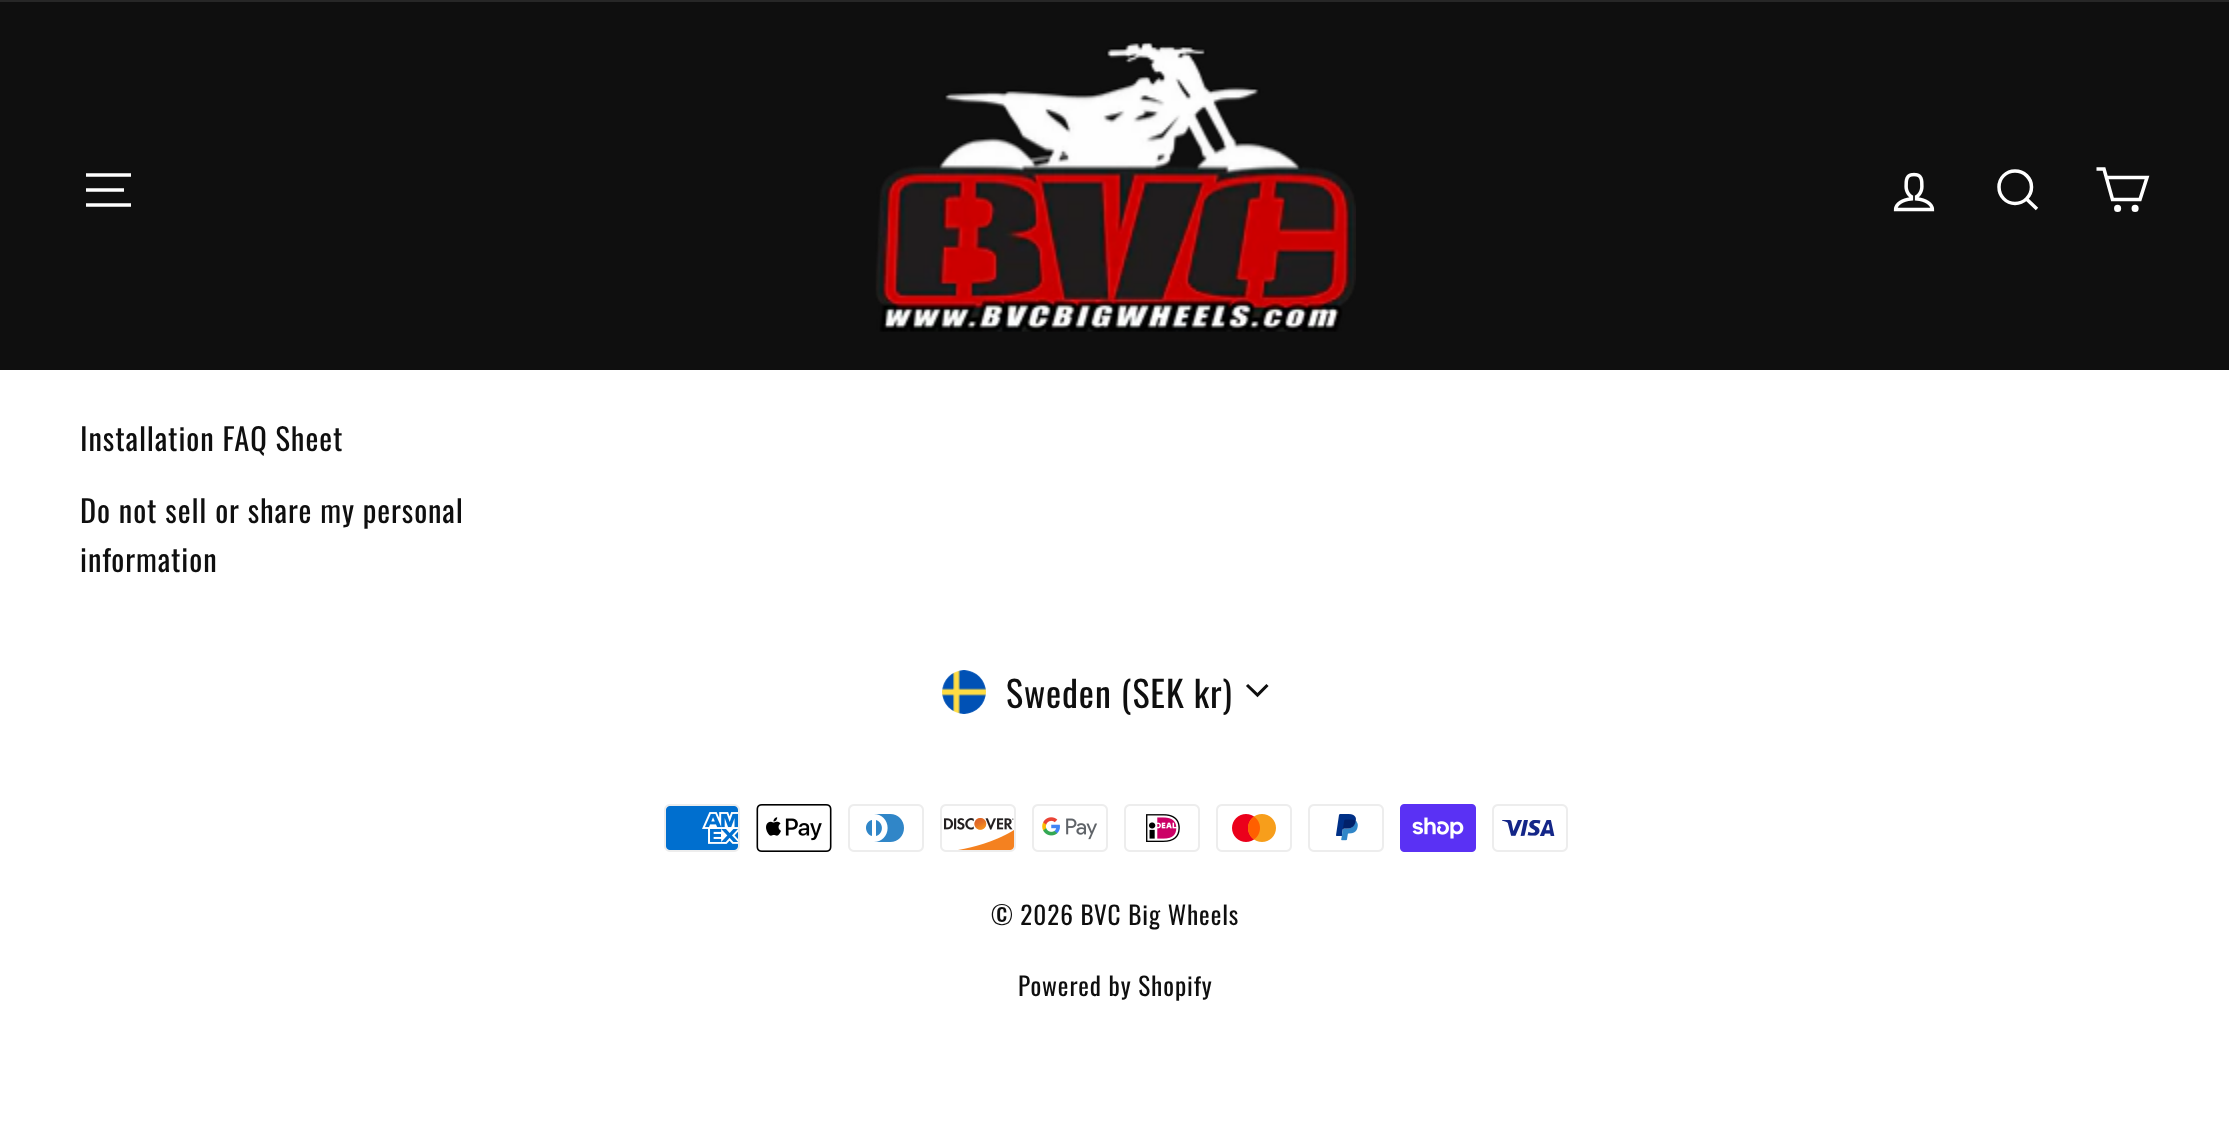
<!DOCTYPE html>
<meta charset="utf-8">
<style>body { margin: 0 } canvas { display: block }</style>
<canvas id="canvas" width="2229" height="1141"></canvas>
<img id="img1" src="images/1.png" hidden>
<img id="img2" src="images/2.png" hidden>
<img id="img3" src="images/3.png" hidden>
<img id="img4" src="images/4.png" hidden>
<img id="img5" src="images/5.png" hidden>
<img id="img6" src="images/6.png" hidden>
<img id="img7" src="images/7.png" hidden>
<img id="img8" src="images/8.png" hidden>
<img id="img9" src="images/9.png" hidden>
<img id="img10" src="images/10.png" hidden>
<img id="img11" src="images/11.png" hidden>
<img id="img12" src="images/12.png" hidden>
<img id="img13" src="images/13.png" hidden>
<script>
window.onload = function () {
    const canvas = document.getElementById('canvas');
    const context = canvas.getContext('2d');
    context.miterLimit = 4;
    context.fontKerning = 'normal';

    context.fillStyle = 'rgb(255, 255, 255)';
    context.fillRect(0, 0, 2229, 1141);
    context.fillStyle = 'rgb(15, 15, 15)';
    context.fillRect(0, 2, 2229, 368);
    context.fillStyle = 'rgb(39, 39, 39)';
    context.fillRect(0, 0, 2229, 2);
    context.beginPath();
    context.moveTo(86, 175);
    context.lineTo(131, 175);
    context.moveTo(86, 190);
    context.lineTo(124, 190);
    context.moveTo(86, 205);
    context.lineTo(131, 205);
    context.strokeStyle = 'rgb(255, 255, 255)';
    context.lineWidth = 3.5;
    context.stroke();
    context.drawImage(document.getElementById('img1'), 875, 42, 481, 290);
    context.drawImage(document.getElementById('img2'), 1893, 172, 42, 40);
    context.beginPath();
    context.moveTo(2031.5, 187);
    context.bezierCurveTo(2031.5, 196, 2024, 203.5, 2015, 203.5);
    context.bezierCurveTo(2006, 203.5, 1999, 196, 1999, 187);
    context.bezierCurveTo(1999, 178, 2006, 171, 2015, 171);
    context.bezierCurveTo(2024, 171, 2031.5, 178, 2031.5, 187);
    context.closePath();
    context.moveTo(2037, 209);
    context.lineTo(2026.5, 199);
    context.stroke();
    context.beginPath();
    context.moveTo(2106, 177.5);
    context.lineTo(2147, 177.5);
    context.lineTo(2140, 199.5);
    context.lineTo(2112.5, 199.5);
    context.lineTo(2104, 169);
    context.lineTo(2096.5, 169);
    context.stroke();
    context.beginPath();
    context.arc(2117.6, 208.4, 1.8, 0, 2 * Math.PI);
    context.stroke();
    context.beginPath();
    context.arc(2135.1, 208.4, 1.8, 0, 2 * Math.PI);
    context.stroke();
    context.drawImage(document.getElementById('img3'), 942, 670, 44, 44);
    context.beginPath();
    context.moveTo(1247, 685);
    context.lineTo(1257.5, 695);
    context.lineTo(1267.5, 685);
    context.strokeStyle = 'rgb(15, 15, 15)';
    context.lineWidth = 3.1;
    context.stroke();
    context.drawImage(document.getElementById('img4'), 664, 804, 76, 48);
    context.drawImage(document.getElementById('img5'), 756, 804, 76, 48);
    context.drawImage(document.getElementById('img6'), 848, 804, 76, 48);
    context.drawImage(document.getElementById('img7'), 940, 804, 76, 48);
    context.drawImage(document.getElementById('img8'), 1032, 804, 76, 48);
    context.drawImage(document.getElementById('img9'), 1124, 804, 76, 48);
    context.drawImage(document.getElementById('img10'), 1216, 804, 76, 48);
    context.drawImage(document.getElementById('img11'), 1308, 804, 76, 48);
    context.drawImage(document.getElementById('img12'), 1400, 804, 76, 48);
    context.drawImage(document.getElementById('img13'), 1492, 804, 76, 48);
    context.letterSpacing = '0.9px';
    context.font = '30.6px Oswald';
    context.fillStyle = 'rgb(15, 15, 15)';
    context.fillText('Installation FAQ Sheet', 80, 451);
    context.fillText('Do not sell or share my personal', 80, 523);
    context.fillText('information', 80, 572);
    context.font = '36px Oswald';
    context.fillText('Sweden (SEK kr)', 1006, 708);
    context.font = '25.25px Oswald';
    context.fillText('© 2026 BVC Big Wheels', 991, 925);
    context.fillText('Powered by Shopify', 1018, 996);
};
</script>
